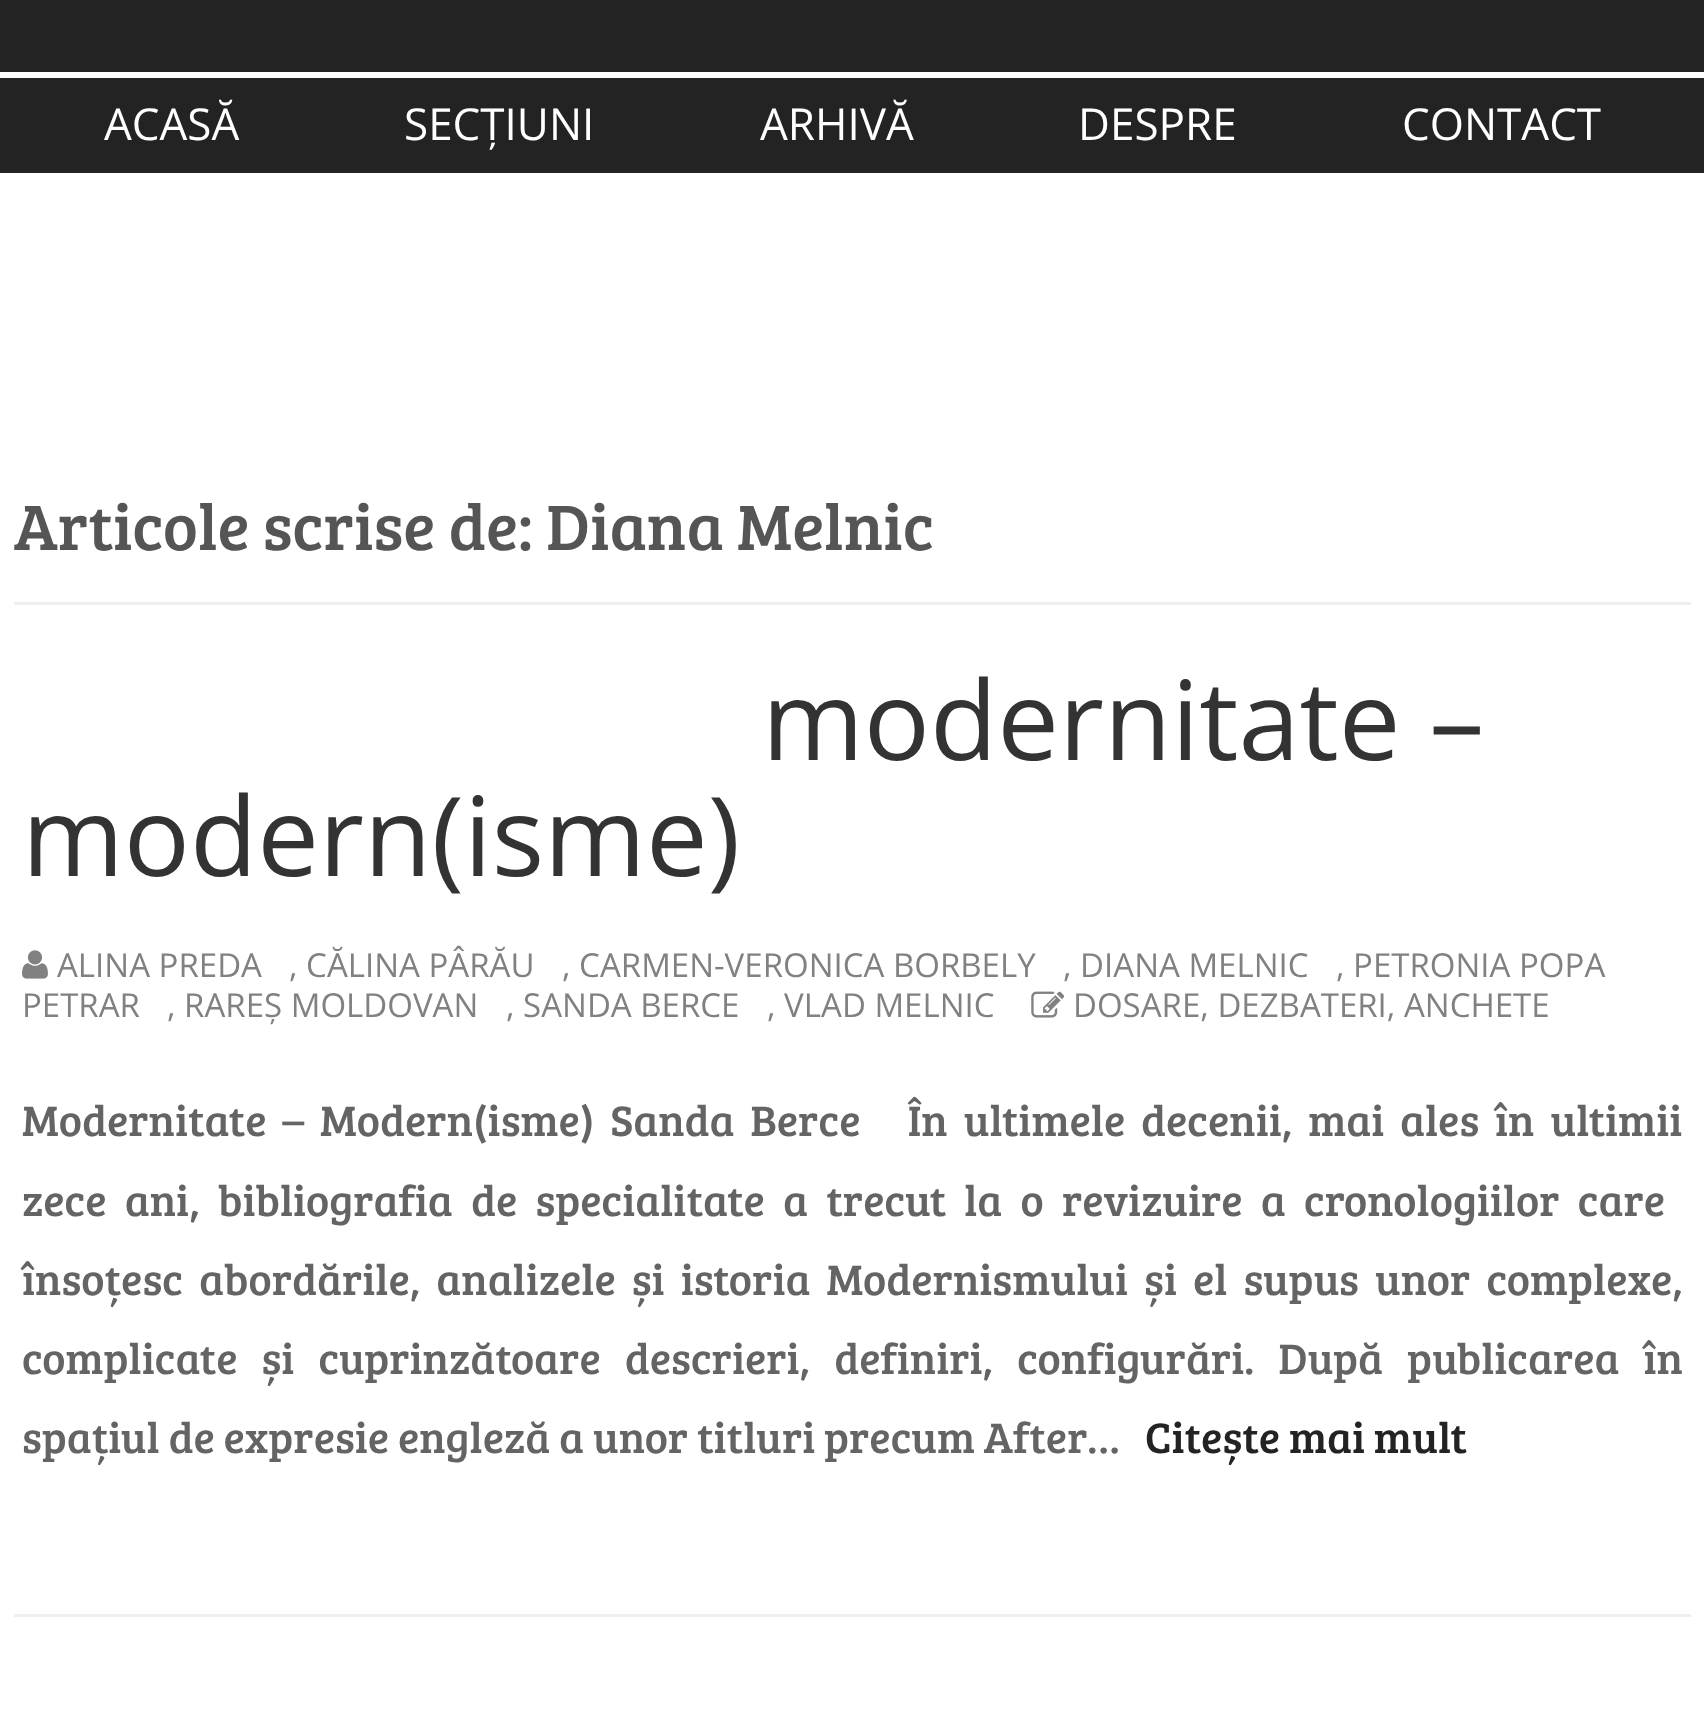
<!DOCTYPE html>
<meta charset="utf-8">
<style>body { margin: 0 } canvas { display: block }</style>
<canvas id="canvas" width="1704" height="1732"></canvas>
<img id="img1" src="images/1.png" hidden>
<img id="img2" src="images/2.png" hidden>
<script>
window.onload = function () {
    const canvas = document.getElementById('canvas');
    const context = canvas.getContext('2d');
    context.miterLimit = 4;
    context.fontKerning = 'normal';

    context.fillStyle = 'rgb(35, 35, 35)';
    context.fillRect(0, 0, 1704, 1732);
    context.fillStyle = 'rgb(255, 255, 255)';
    context.fillRect(0, 72, 1704, 6);
    context.fillRect(0, 173, 1704, 1559);
    context.fillStyle = 'rgb(238, 238, 238)';
    context.fillRect(14, 602, 1677, 3);
    context.fillStyle = 'rgb(239, 239, 239)';
    context.fillRect(14, 1614, 1677, 3);
    context.drawImage(document.getElementById('img1'), 22, 950, 26, 29);
    context.drawImage(document.getElementById('img2'), 1031, 991, 34, 27);
    context.font = '44px Open Sans';
    context.fillStyle = 'rgb(255, 255, 255)';
    context.fillText('ACASĂ', 104, 140);
    context.fillText('SECȚIUNI', 404, 140);
    context.fillText('ARHIVĂ', 760, 140);
    context.fillText('DESPRE', 1078, 140);
    context.fillText('CONTACT', 1402, 140);
    context.font = '66px Bree Serif';
    context.fillStyle = 'rgb(85, 85, 85)';
    context.fillText('Articole scrise de: Diana Melnic', 14, 550);
    context.font = '110px Open Sans';
    context.fillStyle = 'rgb(51, 51, 51)';
    context.fillText('modernitate –', 762, 760);
    context.fillText('modern(isme)', 22, 876);
    context.font = '33px Open Sans';
    context.fillStyle = 'rgb(129, 129, 129)';
    context.fillText('ALINA PREDA', 57, 977);
    context.fillText(', CĂLINA PÂRĂU', 289, 977);
    context.fillText(', CARMEN-VERONICA BORBELY', 562, 977);
    context.fillText(', DIANA MELNIC', 1063, 977);
    context.fillText(', PETRONIA POPA', 1336, 977);
    context.fillText('PETRAR', 22, 1017);
    context.fillText(', RAREȘ MOLDOVAN', 167, 1017);
    context.fillText(', SANDA BERCE', 506, 1017);
    context.fillText(', VLAD MELNIC', 767, 1017);
    context.fillText('DOSARE, DEZBATERI, ANCHETE', 1073, 1017);
    context.wordSpacing = '7px';
    context.font = '44px Bree Serif';
    context.fillStyle = 'rgb(100, 100, 100)';
    context.fillText('Modernitate – Modern(isme) Sanda Berce   În ultimele decenii, mai ales în ultimii', 22, 1136);
    context.wordSpacing = '9.4px';
    context.fillText('zece ani, bibliografia de specialitate a trecut la o revizuire a cronologiilor care', 22, 1216);
    context.wordSpacing = '7.25px';
    context.fillText('însoțesc abordările, analizele și istoria Modernismului și el supus unor complexe,', 22, 1295);
    context.wordSpacing = '15.25px';
    context.fillText('complicate și cuprinzătoare descrieri, definiri, configurări. După publicarea în', 22, 1374);
    context.wordSpacing = '0px';
    context.fillText('spațiul de expresie engleză a unor titluri precum After…', 22, 1453);
    context.fillStyle = 'rgb(35, 35, 35)';
    context.fillText('Citește mai mult', 1145, 1453);
};
</script>
